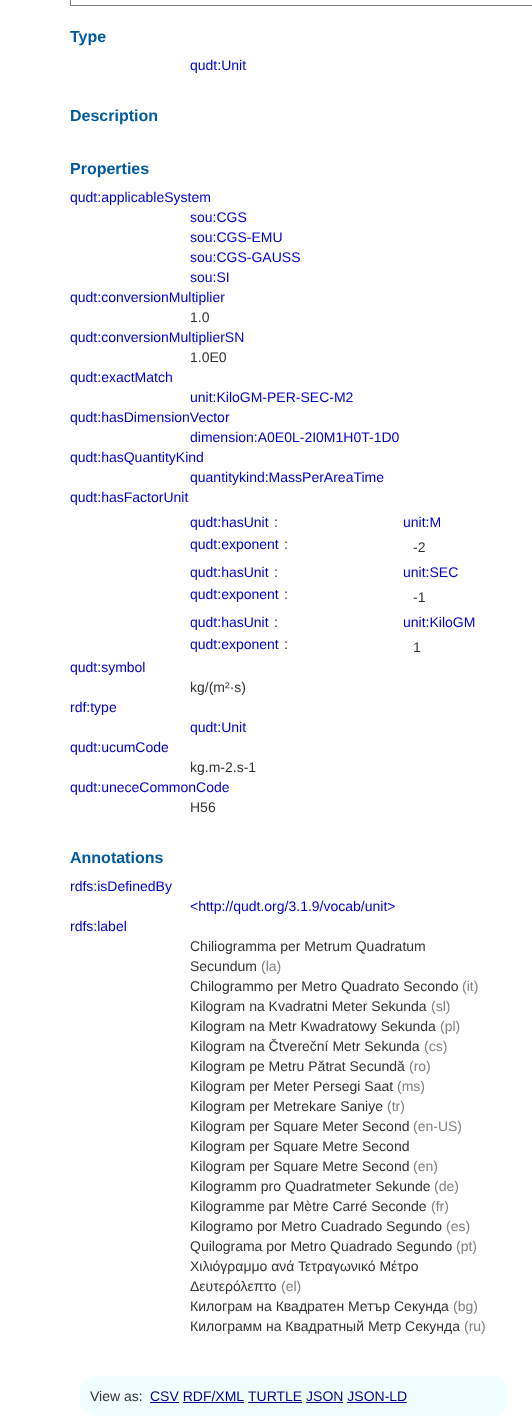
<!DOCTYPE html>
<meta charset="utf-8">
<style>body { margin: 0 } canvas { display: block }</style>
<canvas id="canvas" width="532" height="1428"></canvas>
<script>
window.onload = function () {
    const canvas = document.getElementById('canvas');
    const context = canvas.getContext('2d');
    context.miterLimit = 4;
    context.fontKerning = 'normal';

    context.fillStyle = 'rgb(255, 255, 255)';
    context.fillRect(0, 0, 532, 1428);
    context.strokeStyle = 'rgb(128, 128, 128)';
    context.strokeRect(70.5, -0.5, 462, 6);
    context.fillStyle = 'rgb(240, 255, 255)';
    context.beginPath();
    context.roundRect(80, 1376, 428, 40, 15);
    context.fill();
    context.fillStyle = 'rgb(0, 0, 139)';
    context.fillRect(150, 1402, 29, 1);
    context.fillRect(248, 1402, 54, 1);
    context.fillRect(183, 1402, 61, 1);
    context.fillRect(306, 1402, 37, 1);
    context.fillRect(347, 1402, 60, 1);
    context.font = 'bold 16px Liberation Sans';
    context.fillStyle = 'rgb(0, 90, 156)';
    context.fillText('Type', 70, 42);
    context.font = '14px Liberation Sans';
    context.fillStyle = 'rgb(0, 0, 204)';
    context.fillText('qudt:Unit', 190, 70);
    context.font = 'bold 16px Liberation Sans';
    context.fillStyle = 'rgb(0, 90, 156)';
    context.fillText('Description', 70, 121);
    context.fillText('Properties', 70, 174);
    context.font = '14px Liberation Sans';
    context.fillStyle = 'rgb(0, 0, 204)';
    context.fillText('qudt:applicableSystem', 70, 202);
    context.fillText('sou:CGS', 190, 222);
    context.fillText('sou:CGS-EMU', 190, 242);
    context.fillText('sou:CGS-GAUSS', 190, 262);
    context.fillText('sou:SI', 190, 282);
    context.fillText('qudt:conversionMultiplier', 70, 302);
    context.fillStyle = 'rgb(51, 51, 51)';
    context.fillText('1.0', 190, 322);
    context.fillStyle = 'rgb(0, 0, 204)';
    context.fillText('qudt:conversionMultiplierSN', 70, 342);
    context.fillStyle = 'rgb(51, 51, 51)';
    context.fillText('1.0E0', 190, 362);
    context.fillStyle = 'rgb(0, 0, 204)';
    context.fillText('qudt:exactMatch', 70, 382);
    context.fillText('unit:KiloGM-PER-SEC-M2', 190, 402);
    context.fillText('qudt:hasDimensionVector', 70, 422);
    context.fillText('dimension:A0E0L-2I0M1H0T-1D0', 190, 442);
    context.fillText('qudt:hasQuantityKind', 70, 462);
    context.fillText('quantitykind:MassPerAreaTime', 190, 482);
    context.fillText('qudt:hasFactorUnit', 70, 502);
    context.fillText('qudt:hasUnit', 190, 527);
    context.fillStyle = 'rgb(51, 51, 51)';
    context.fillText(':', 274, 527);
    context.fillStyle = 'rgb(0, 0, 204)';
    context.fillText('unit:M', 403, 527);
    context.fillText('qudt:exponent', 190, 549);
    context.fillStyle = 'rgb(51, 51, 51)';
    context.fillText(':', 284, 549);
    context.fillText('-2', 413, 552);
    context.fillStyle = 'rgb(0, 0, 204)';
    context.fillText('qudt:hasUnit', 190, 577);
    context.fillStyle = 'rgb(51, 51, 51)';
    context.fillText(':', 274, 577);
    context.fillStyle = 'rgb(0, 0, 204)';
    context.fillText('unit:SEC', 403, 577);
    context.fillText('qudt:exponent', 190, 599);
    context.fillStyle = 'rgb(51, 51, 51)';
    context.fillText(':', 284, 599);
    context.fillText('-1', 413, 602);
    context.fillStyle = 'rgb(0, 0, 204)';
    context.fillText('qudt:hasUnit', 190, 627);
    context.fillStyle = 'rgb(51, 51, 51)';
    context.fillText(':', 274, 627);
    context.fillStyle = 'rgb(0, 0, 204)';
    context.fillText('unit:KiloGM', 403, 627);
    context.fillText('qudt:exponent', 190, 649);
    context.fillStyle = 'rgb(51, 51, 51)';
    context.fillText(':', 284, 649);
    context.fillText('1', 413, 652);
    context.fillStyle = 'rgb(0, 0, 204)';
    context.fillText('qudt:symbol', 70, 672);
    context.fillStyle = 'rgb(51, 51, 51)';
    context.fillText('kg/(m²·s)', 190, 692);
    context.fillStyle = 'rgb(0, 0, 204)';
    context.fillText('rdf:type', 70, 712);
    context.fillText('qudt:Unit', 190, 732);
    context.fillText('qudt:ucumCode', 70, 752);
    context.fillStyle = 'rgb(51, 51, 51)';
    context.fillText('kg.m-2.s-1', 190, 772);
    context.fillStyle = 'rgb(0, 0, 204)';
    context.fillText('qudt:uneceCommonCode', 70, 792);
    context.fillStyle = 'rgb(51, 51, 51)';
    context.fillText('H56', 190, 812);
    context.font = 'bold 16px Liberation Sans';
    context.fillStyle = 'rgb(0, 90, 156)';
    context.fillText('Annotations', 70, 863);
    context.font = '14px Liberation Sans';
    context.fillStyle = 'rgb(0, 0, 204)';
    context.fillText('rdfs:isDefinedBy', 70, 891);
    context.fillText('<http://qudt.org/3.1.9/vocab/unit>', 190, 911);
    context.fillText('rdfs:label', 70, 931);
    context.fillStyle = 'rgb(51, 51, 51)';
    context.fillText('Chiliogramma per Metrum Quadratum', 190, 951);
    context.fillText('Secundum', 190, 971);
    context.fillStyle = 'rgb(128, 128, 128)';
    context.fillText('(la)', 261, 971);
    context.fillStyle = 'rgb(51, 51, 51)';
    context.fillText('Chilogrammo per Metro Quadrato Secondo', 190, 991);
    context.fillStyle = 'rgb(128, 128, 128)';
    context.fillText('(it)', 462, 991);
    context.fillStyle = 'rgb(51, 51, 51)';
    context.fillText('Kilogram na Kvadratni Meter Sekunda', 190, 1011);
    context.fillStyle = 'rgb(128, 128, 128)';
    context.fillText('(sl)', 431, 1011);
    context.fillStyle = 'rgb(51, 51, 51)';
    context.fillText('Kilogram na Metr Kwadratowy Sekunda', 190, 1031);
    context.fillStyle = 'rgb(128, 128, 128)';
    context.fillText('(pl)', 440, 1031);
    context.fillStyle = 'rgb(51, 51, 51)';
    context.fillText('Kilogram na Čtvereční Metr Sekunda', 190, 1051);
    context.fillStyle = 'rgb(128, 128, 128)';
    context.fillText('(cs)', 424, 1051);
    context.fillStyle = 'rgb(51, 51, 51)';
    context.fillText('Kilogram pe Metru Pătrat Secundă', 190, 1071);
    context.fillStyle = 'rgb(128, 128, 128)';
    context.fillText('(ro)', 409, 1071);
    context.fillStyle = 'rgb(51, 51, 51)';
    context.fillText('Kilogram per Meter Persegi Saat', 190, 1091);
    context.fillStyle = 'rgb(128, 128, 128)';
    context.fillText('(ms)', 397, 1091);
    context.fillStyle = 'rgb(51, 51, 51)';
    context.fillText('Kilogram per Metrekare Saniye', 190, 1111);
    context.fillStyle = 'rgb(128, 128, 128)';
    context.fillText('(tr)', 387, 1111);
    context.fillStyle = 'rgb(51, 51, 51)';
    context.fillText('Kilogram per Square Meter Second', 190, 1131);
    context.fillStyle = 'rgb(128, 128, 128)';
    context.fillText('(en-US)', 413, 1131);
    context.fillStyle = 'rgb(51, 51, 51)';
    context.fillText('Kilogram per Square Metre Second', 190, 1151);
    context.fillText('Kilogram per Square Metre Second', 190, 1171);
    context.fillStyle = 'rgb(128, 128, 128)';
    context.fillText('(en)', 413, 1171);
    context.fillStyle = 'rgb(51, 51, 51)';
    context.fillText('Kilogramm pro Quadratmeter Sekunde', 190, 1191);
    context.fillStyle = 'rgb(128, 128, 128)';
    context.fillText('(de)', 434, 1191);
    context.fillStyle = 'rgb(51, 51, 51)';
    context.fillText('Kilogramme par Mètre Carré Seconde', 190, 1211);
    context.fillStyle = 'rgb(128, 128, 128)';
    context.fillText('(fr)', 431, 1211);
    context.fillStyle = 'rgb(51, 51, 51)';
    context.fillText('Kilogramo por Metro Cuadrado Segundo', 190, 1231);
    context.fillStyle = 'rgb(128, 128, 128)';
    context.fillText('(es)', 446, 1231);
    context.fillStyle = 'rgb(51, 51, 51)';
    context.fillText('Quilograma por Metro Quadrado Segundo', 190, 1251);
    context.fillStyle = 'rgb(128, 128, 128)';
    context.fillText('(pt)', 456, 1251);
    context.fillStyle = 'rgb(51, 51, 51)';
    context.fillText('Χιλιόγραμμο ανά Τετραγωνικό Μέτρο', 190, 1271);
    context.fillText('Δευτερόλεπτο', 190, 1291);
    context.fillStyle = 'rgb(128, 128, 128)';
    context.fillText('(el)', 281, 1291);
    context.fillStyle = 'rgb(51, 51, 51)';
    context.fillText('Килограм на Квадратен Метър Секунда', 190, 1311);
    context.fillStyle = 'rgb(128, 128, 128)';
    context.fillText('(bg)', 453, 1311);
    context.fillStyle = 'rgb(51, 51, 51)';
    context.fillText('Килограмм на Квадратный Метр Секунда', 190, 1331);
    context.fillStyle = 'rgb(128, 128, 128)';
    context.fillText('(ru)', 464, 1331);
    context.fillStyle = 'rgb(51, 51, 51)';
    context.fillText('View as:', 90, 1401);
    context.fillStyle = 'rgb(0, 0, 139)';
    context.fillText('CSV RDF/XML', 150, 1401);
    context.fillText('TURTLE JSON JSON-LD', 248, 1401);
};
</script>
